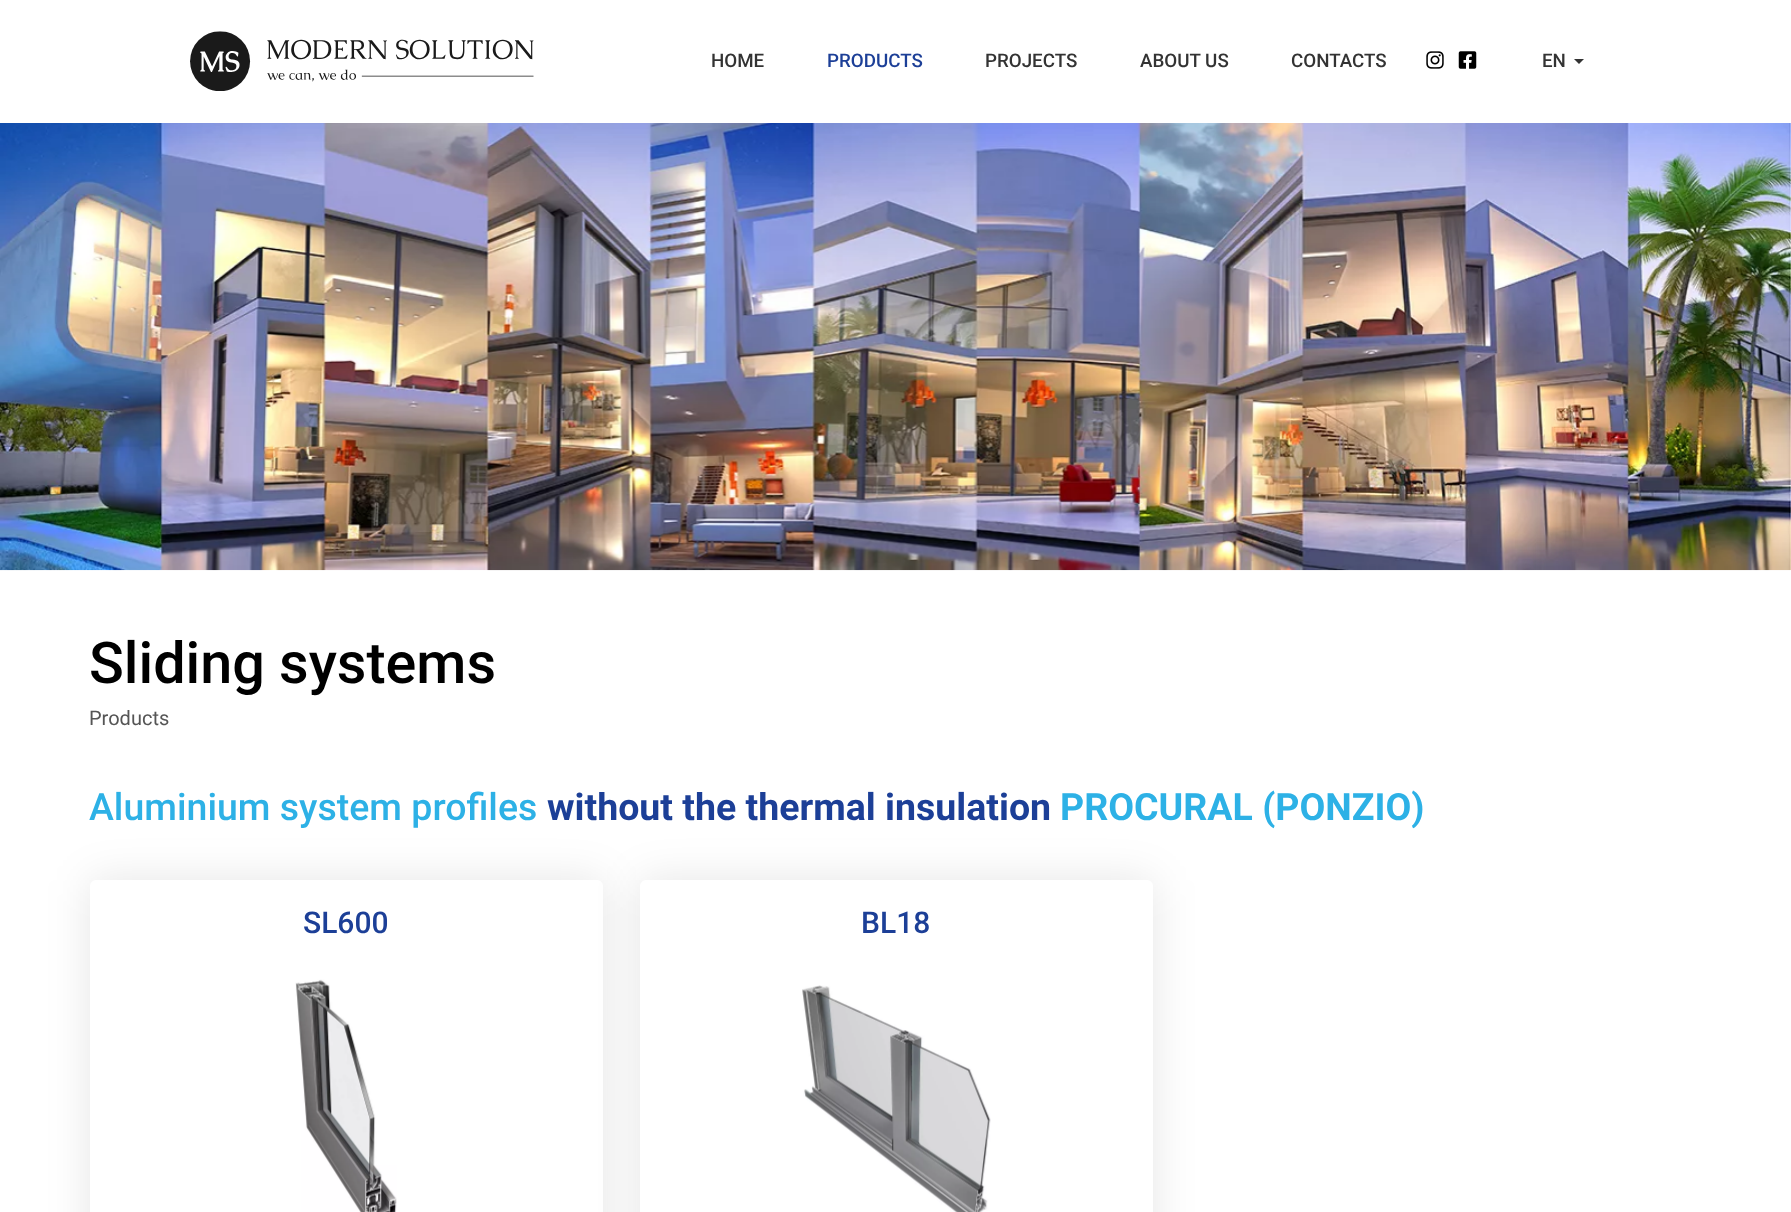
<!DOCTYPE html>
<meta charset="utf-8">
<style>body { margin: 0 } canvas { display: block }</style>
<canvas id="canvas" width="1791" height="1212"></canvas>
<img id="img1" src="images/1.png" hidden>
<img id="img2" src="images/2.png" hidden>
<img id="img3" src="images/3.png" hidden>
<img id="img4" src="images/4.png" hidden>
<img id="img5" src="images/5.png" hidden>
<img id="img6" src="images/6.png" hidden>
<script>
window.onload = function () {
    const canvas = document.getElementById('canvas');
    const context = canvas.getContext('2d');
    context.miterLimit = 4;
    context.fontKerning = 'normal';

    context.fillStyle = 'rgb(255, 255, 255)';
    context.fillRect(0, 0, 1791, 1212);
    context.drawImage(document.getElementById('img1'), 190, 31, 344, 60);
    context.drawImage(document.getElementById('img2'), 1426, 51, 18, 18);
    context.drawImage(document.getElementById('img3'), 1458, 51, 19, 18);
    context.fillStyle = 'rgb(51, 51, 51)';
    context.beginPath();
    context.moveTo(1574, 59);
    context.lineTo(1584, 59);
    context.lineTo(1579, 64);
    context.closePath();
    context.fill();
    context.drawImage(document.getElementById('img4'), 0, 123, 1791, 448);
    context.fillStyle = 'rgba(0, 0, 0, 0.1)';
    context.filter = 'blur(22px)';
    context.beginPath();
    context.roundRect(90, 880, 513, 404, 6);
    context.fill();
    context.filter = 'none';
    context.fillStyle = 'rgb(255, 255, 255)';
    context.beginPath();
    context.roundRect(90, 880, 513, 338, 6);
    context.fill();
    context.drawImage(document.getElementById('img5'), 295, 979, 102, 233);
    context.fillStyle = 'rgba(0, 0, 0, 0.1)';
    context.filter = 'blur(22px)';
    context.beginPath();
    context.roundRect(640, 880, 513, 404, 6);
    context.fill();
    context.filter = 'none';
    context.fillStyle = 'rgb(255, 255, 255)';
    context.beginPath();
    context.roundRect(640, 880, 513, 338, 6);
    context.fill();
    context.drawImage(document.getElementById('img6'), 802, 985, 189, 227);
    context.font = '500 18.75px Roboto';
    context.fillStyle = 'rgb(51, 51, 51)';
    context.fillText('HOME', 711, 67);
    context.fillStyle = 'rgb(28, 63, 151)';
    context.fillText('PRODUCTS', 827, 67);
    context.fillStyle = 'rgb(51, 51, 51)';
    context.fillText('PROJECTS', 985, 67);
    context.fillText('ABOUT US', 1140, 67);
    context.fillText('CONTACTS', 1291, 67);
    context.fillText('EN', 1542, 67);
    context.font = '500 57.5px Roboto';
    context.fillStyle = 'rgb(0, 0, 0)';
    context.fillText('Sliding systems', 89, 683);
    context.font = '20px Roboto';
    context.fillStyle = 'rgb(85, 85, 85)';
    context.fillText('Products', 89, 725);
    context.font = '500 37.5px Roboto';
    context.fillStyle = 'rgb(45, 177, 230)';
    context.fillText('Aluminium system profiles', 89, 820);
    context.font = 'bold 37.5px Roboto';
    context.fillStyle = 'rgb(28, 63, 151)';
    context.fillText('without the thermal insulation', 547, 820);
    context.fillStyle = 'rgb(45, 177, 230)';
    context.fillText('PROCURAL (PONZIO)', 1060, 820);
    context.font = '500 30px Roboto';
    context.fillStyle = 'rgb(28, 63, 151)';
    context.fillText('SL600', 303, 933);
    context.fillText('BL18', 861, 933);
};
</script>
